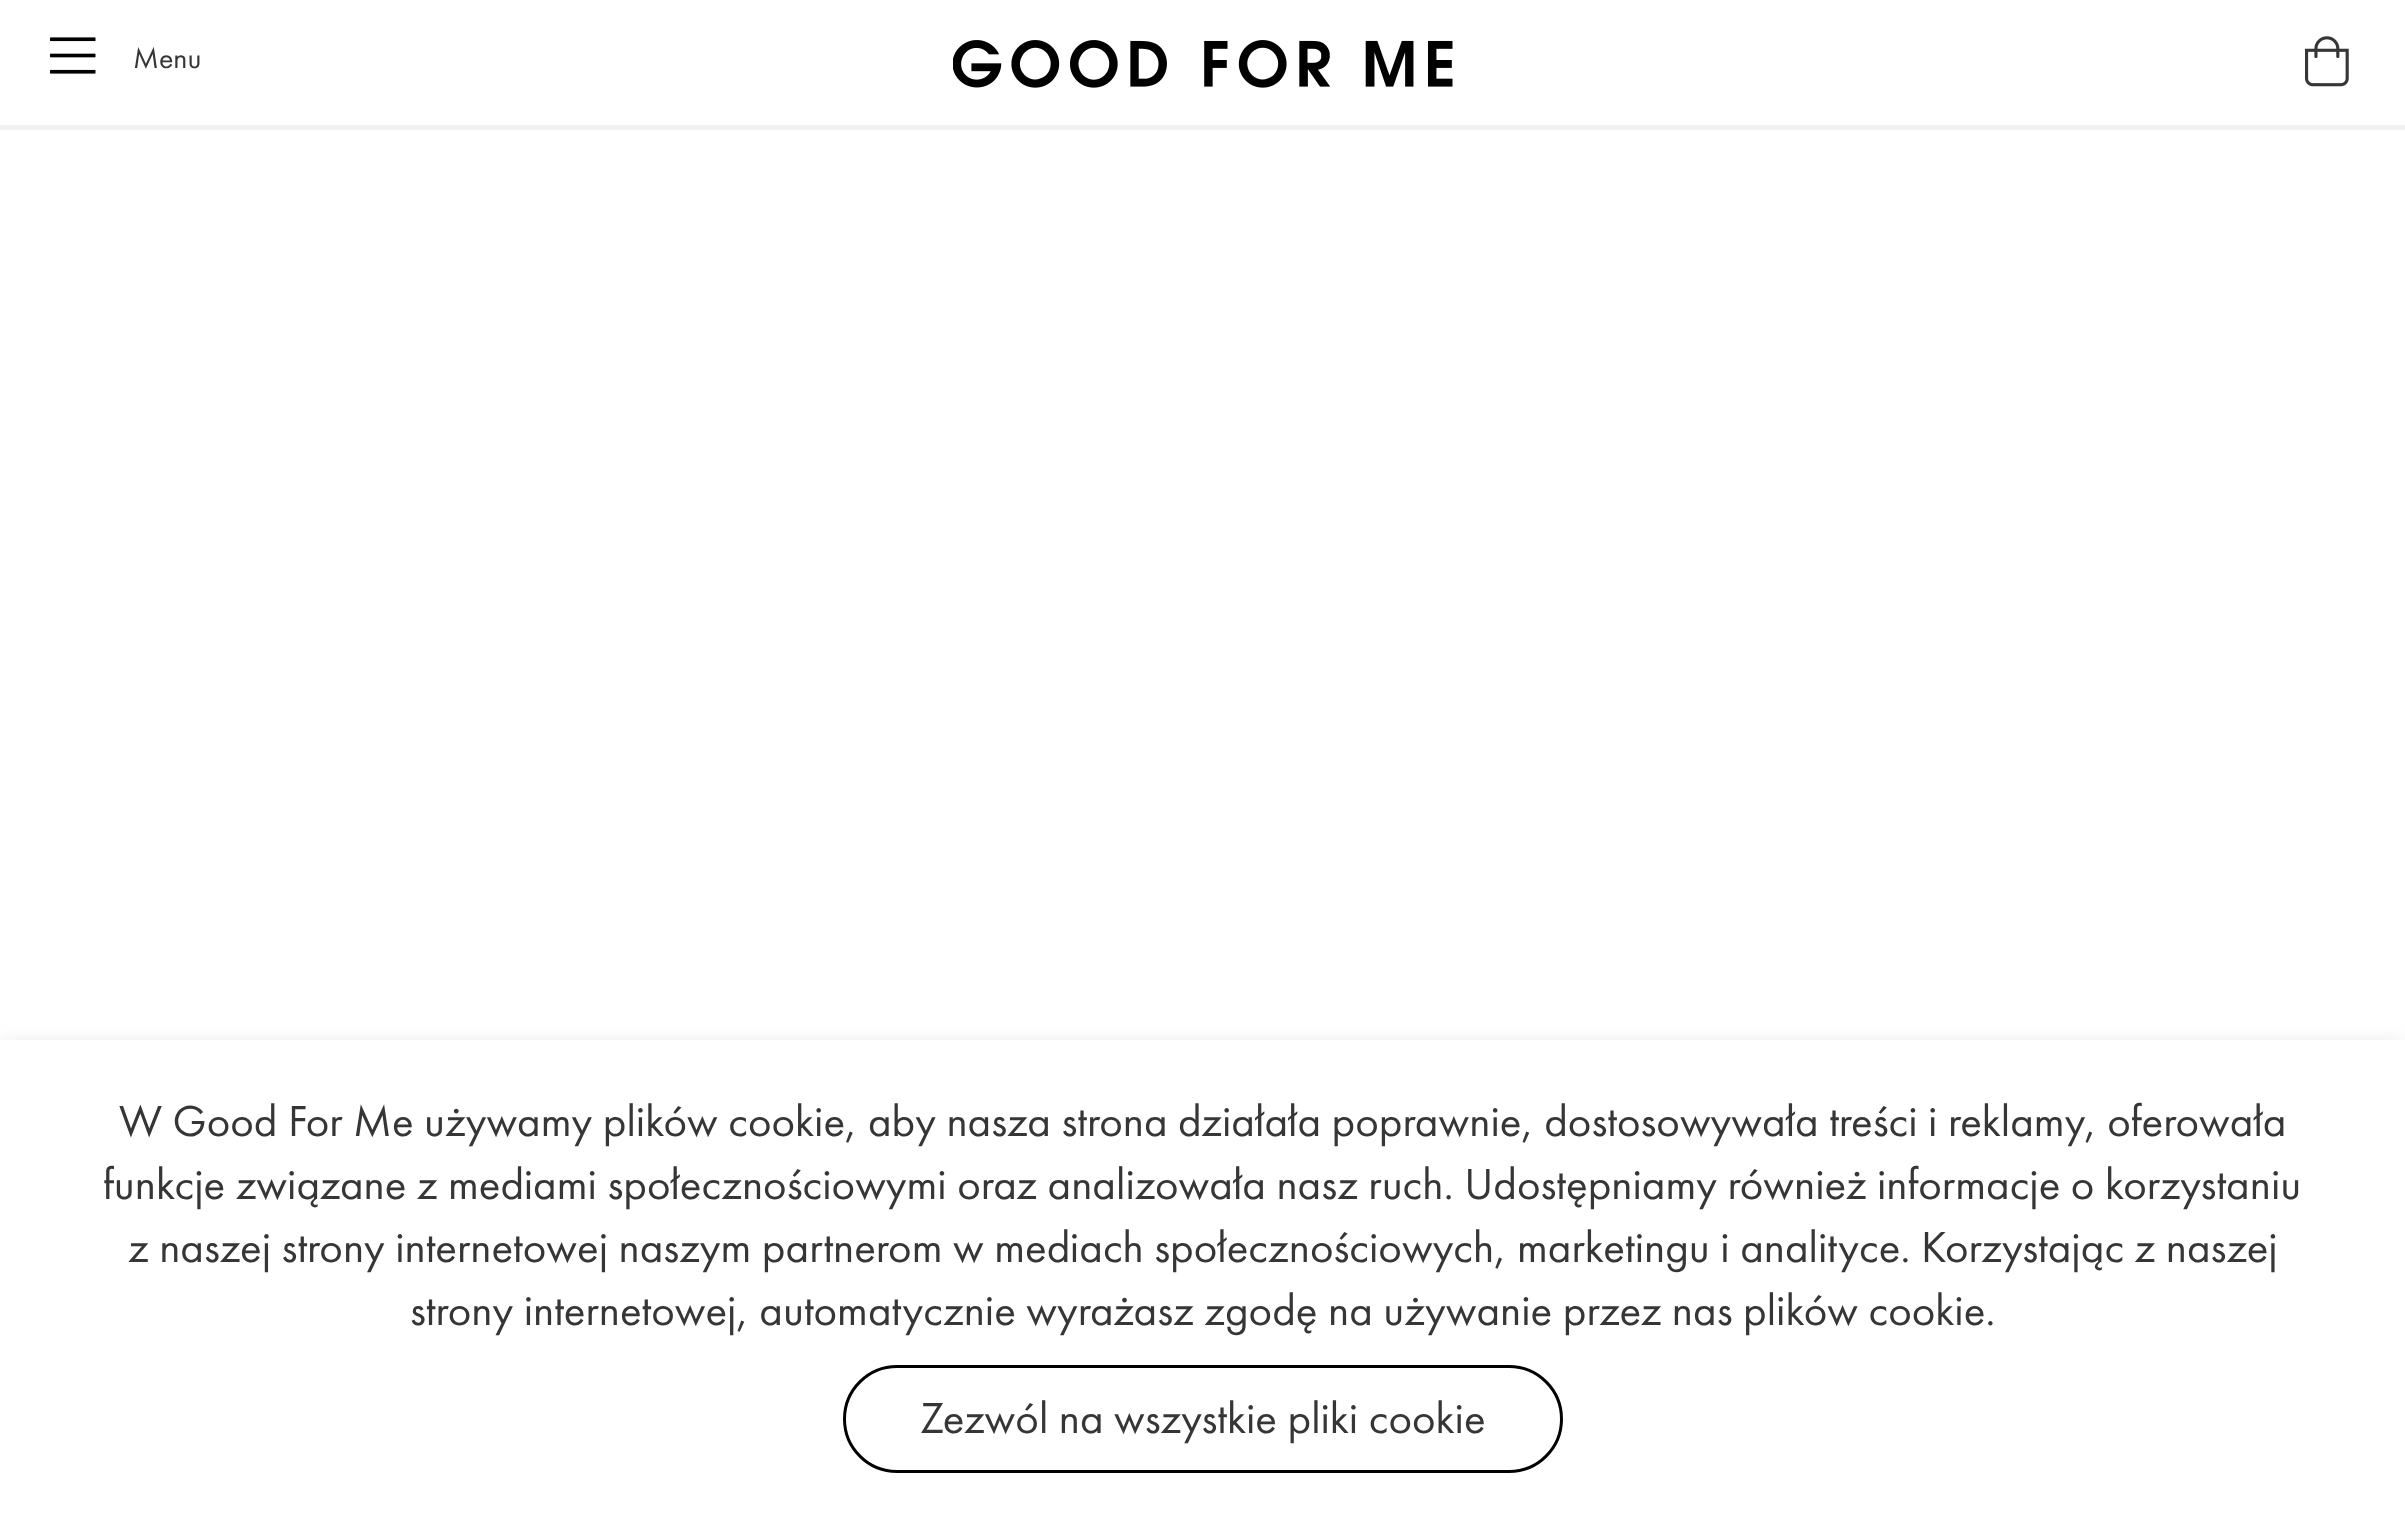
<!DOCTYPE html>
<meta charset="utf-8">
<style>body { margin: 0 } canvas { display: block }</style>
<canvas id="canvas" width="2405" height="1522"></canvas>
<img id="img1" src="images/1.png" hidden>
<img id="img2" src="images/2.png" hidden>
<img id="img3" src="images/3.png" hidden>
<script>
window.onload = function () {
    const canvas = document.getElementById('canvas');
    const context = canvas.getContext('2d');
    context.miterLimit = 4;
    context.fontKerning = 'normal';

    context.fillStyle = 'rgb(255, 255, 255)';
    context.fillRect(0, 0, 2405, 1522);
    context.fillStyle = 'rgb(241, 241, 241)';
    context.fillRect(0, 125, 2405, 5);
    context.drawImage(document.getElementById('img1'), 50, 37, 46, 37);
    context.drawImage(document.getElementById('img2'), 953, 40, 500, 48);
    context.drawImage(document.getElementById('img3'), 2305, 36, 44, 51);
    context.fillStyle = 'rgba(99, 99, 99, 0.2)';
    context.filter = 'blur(10px)';
    context.beginPath();
    context.rect(0, 1045, 2405, 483);
    context.fill();
    context.filter = 'none';
    context.fillStyle = 'rgb(255, 255, 255)';
    context.fillRect(0, 1040, 2405, 482);
    context.beginPath();
    context.roundRect(844.5, 1366.5, 717, 105, 52.5);
    context.strokeStyle = 'rgb(0, 0, 0)';
    context.lineWidth = 3;
    context.stroke();
    context.font = '30px Futura PT';
    context.fillStyle = 'rgb(54, 54, 54)';
    context.fillText('Menu', 133, 68);
    context.font = '45px Futura PT';
    context.fillText('W Good For Me używamy plików cookie, aby nasza strona działała poprawnie, dostosowywała treści i reklamy, oferowała', 119, 1136);
    context.fillText('funkcje związane z mediami społecznościowymi oraz analizowała nasz ruch. Udostępniamy również informacje o korzystaniu', 103, 1199);
    context.fillText('z naszej strony internetowej naszym partnerom w mediach społecznościowych, marketingu i analityce. Korzystając z naszej', 128, 1262);
    context.fillText('strony internetowej, automatycznie wyrażasz zgodę na używanie przez nas plików cookie.', 410, 1325);
    context.fillText('Zezwól na wszystkie pliki cookie', 920, 1433);
};
</script>
